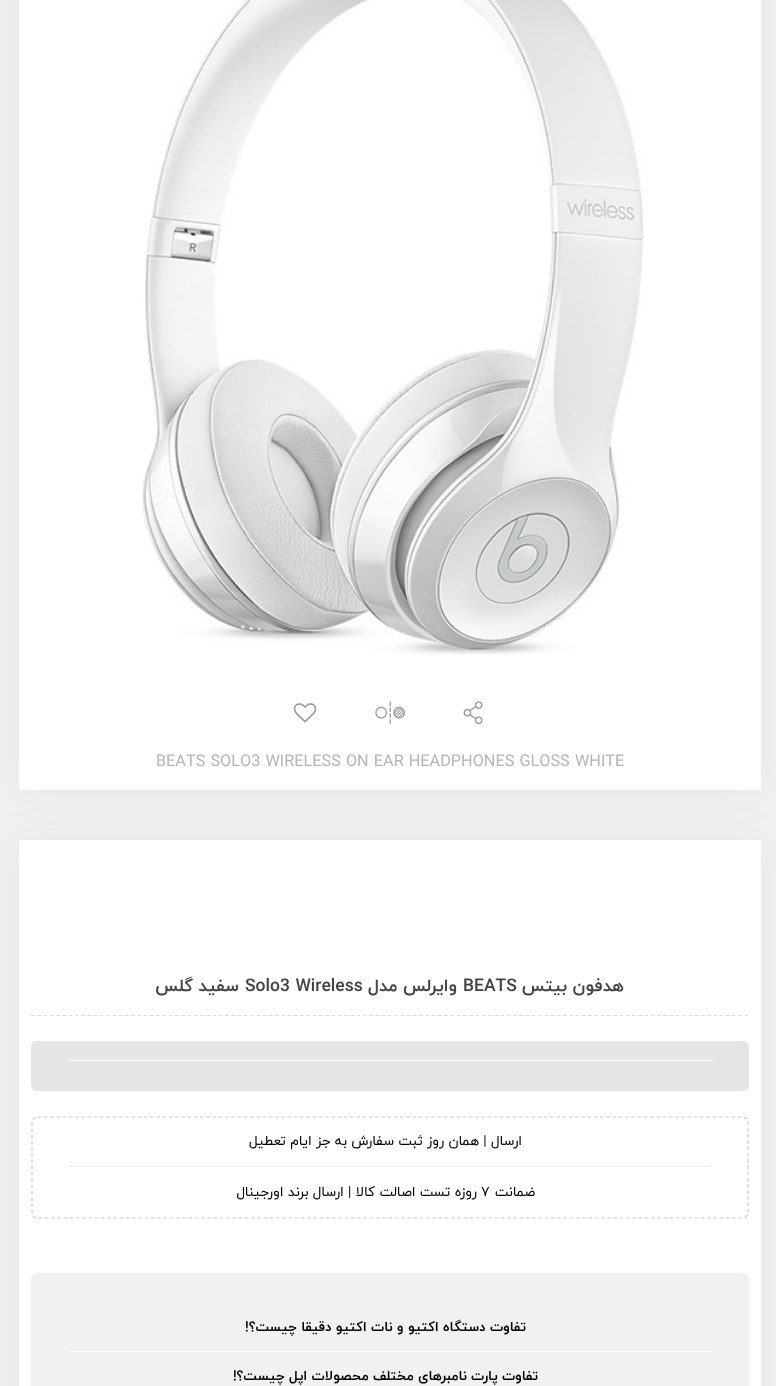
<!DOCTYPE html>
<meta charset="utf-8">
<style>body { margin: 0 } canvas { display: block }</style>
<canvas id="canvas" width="780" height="1386"></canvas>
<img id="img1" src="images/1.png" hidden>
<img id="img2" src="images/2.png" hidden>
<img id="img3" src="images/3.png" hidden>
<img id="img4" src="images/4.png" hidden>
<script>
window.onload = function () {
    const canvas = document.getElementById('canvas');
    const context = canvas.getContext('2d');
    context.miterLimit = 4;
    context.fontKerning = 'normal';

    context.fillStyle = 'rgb(240, 241, 243)';
    context.fillRect(0, 0, 780, 1386);
    context.fillStyle = 'rgba(0, 0, 0, 0.05)';
    context.filter = 'blur(22px)';
    context.beginPath();
    context.rect(19, -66, 742, 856);
    context.fill();
    context.filter = 'none';
    context.fillStyle = 'rgb(255, 255, 255)';
    context.fillRect(19, 0, 742, 790);
    context.fillStyle = 'rgba(0, 0, 0, 0.05)';
    context.filter = 'blur(22px)';
    context.beginPath();
    context.rect(19, 840, 742, 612);
    context.fill();
    context.filter = 'none';
    context.fillStyle = 'rgb(255, 255, 255)';
    context.fillRect(776, 0, 4, 1386);
    context.drawImage(document.getElementById('img1'), 142, 0, 502, 655);
    context.drawImage(document.getElementById('img2'), 463, 701, 20, 23);
    context.drawImage(document.getElementById('img3'), 375, 701, 30, 23);
    context.drawImage(document.getElementById('img4'), 293, 703, 24, 20);
    context.fillRect(19, 840, 742, 546);
    context.beginPath();
    context.moveTo(31, 1015.5);
    context.lineTo(749, 1015.5);
    context.strokeStyle = 'rgb(221, 221, 221)';
    context.lineWidth = 1.2;
    context.setLineDash([3.75, 2.51]);
    context.stroke();
    context.fillStyle = 'rgb(229, 229, 229)';
    context.beginPath();
    context.roundRect(31, 1041, 718, 50, 6);
    context.fill();
    context.fillStyle = 'rgb(255, 255, 255)';
    context.fillRect(68, 1060, 645, 1);
    context.beginPath();
    context.moveTo(37.5, 1117);
    context.lineTo(742.5, 1117);
    context.bezierCurveTo(745.5, 1117, 748, 1119.5, 748, 1122.5);
    context.lineTo(748, 1212.5);
    context.bezierCurveTo(748, 1215.5, 745.5, 1218, 742.5, 1218);
    context.lineTo(37.5, 1218);
    context.bezierCurveTo(34.5, 1218, 32, 1215.5, 32, 1212.5);
    context.lineTo(32, 1122.5);
    context.bezierCurveTo(32, 1119.5, 34.5, 1117, 37.5, 1117);
    context.closePath();
    context.strokeStyle = 'rgb(204, 204, 204)';
    context.setLineDash([3.75, 2.5]);
    context.stroke();
    context.fillStyle = 'rgb(238, 238, 238)';
    context.fillRect(69, 1166, 642, 1);
    context.fillStyle = 'rgb(240, 241, 243)';
    context.beginPath();
    context.roundRect(31, 1273, 718, 80, [6, 6, 0, 0]);
    context.fill();
    context.fillStyle = 'rgb(255, 255, 255)';
    context.fillRect(68, 1351, 645, 1);
    context.fillStyle = 'rgb(240, 241, 243)';
    context.fillRect(31, 1353, 718, 33);
    context.font = '16.25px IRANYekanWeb';
    context.fillStyle = 'rgb(181, 181, 181)';
    context.fillText('BEATS SOLO3 WIRELESS ON EAR HEADPHONES GLOSS WHITE', 156, 766);
    context.direction = 'rtl';
    context.font = 'bold 17.5px IRANYekanWeb';
    context.fillStyle = 'rgb(68, 68, 68)';
    context.fillText('هدفون بیتس', 624, 991);
    context.direction = 'ltr';
    context.fillText('BEATS', 463, 991);
    context.direction = 'rtl';
    context.fillText('وایرلس مدل', 457, 991);
    context.direction = 'ltr';
    context.fillText('Solo3 Wireless', 245, 991);
    context.direction = 'rtl';
    context.fillText('سفید گلس', 239, 991);
    context.font = '13.75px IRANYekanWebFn';
    context.fillStyle = 'rgb(0, 0, 0)';
    context.fillText('ارسال | همان روز ثبت سفارش به جز ایام تعطیل', 522, 1145);
    context.fillText('ضمانت', 535, 1196);
    context.direction = 'ltr';
    context.fillText('7', 481, 1196);
    context.direction = 'rtl';
    context.fillText('روزه تست اصالت کالا | ارسال برند اورجینال', 477, 1196);
    context.font = 'bold 13.75px IRANYekanWeb';
    context.fillText('تفاوت دستگاه اکتیو و نات اکتیو دقیقا چیست؟!', 526, 1331);
    context.fillText('تفاوت پارت نامبرهای مختلف محصولات اپل چیست؟!', 538, 1380);
};
</script>
